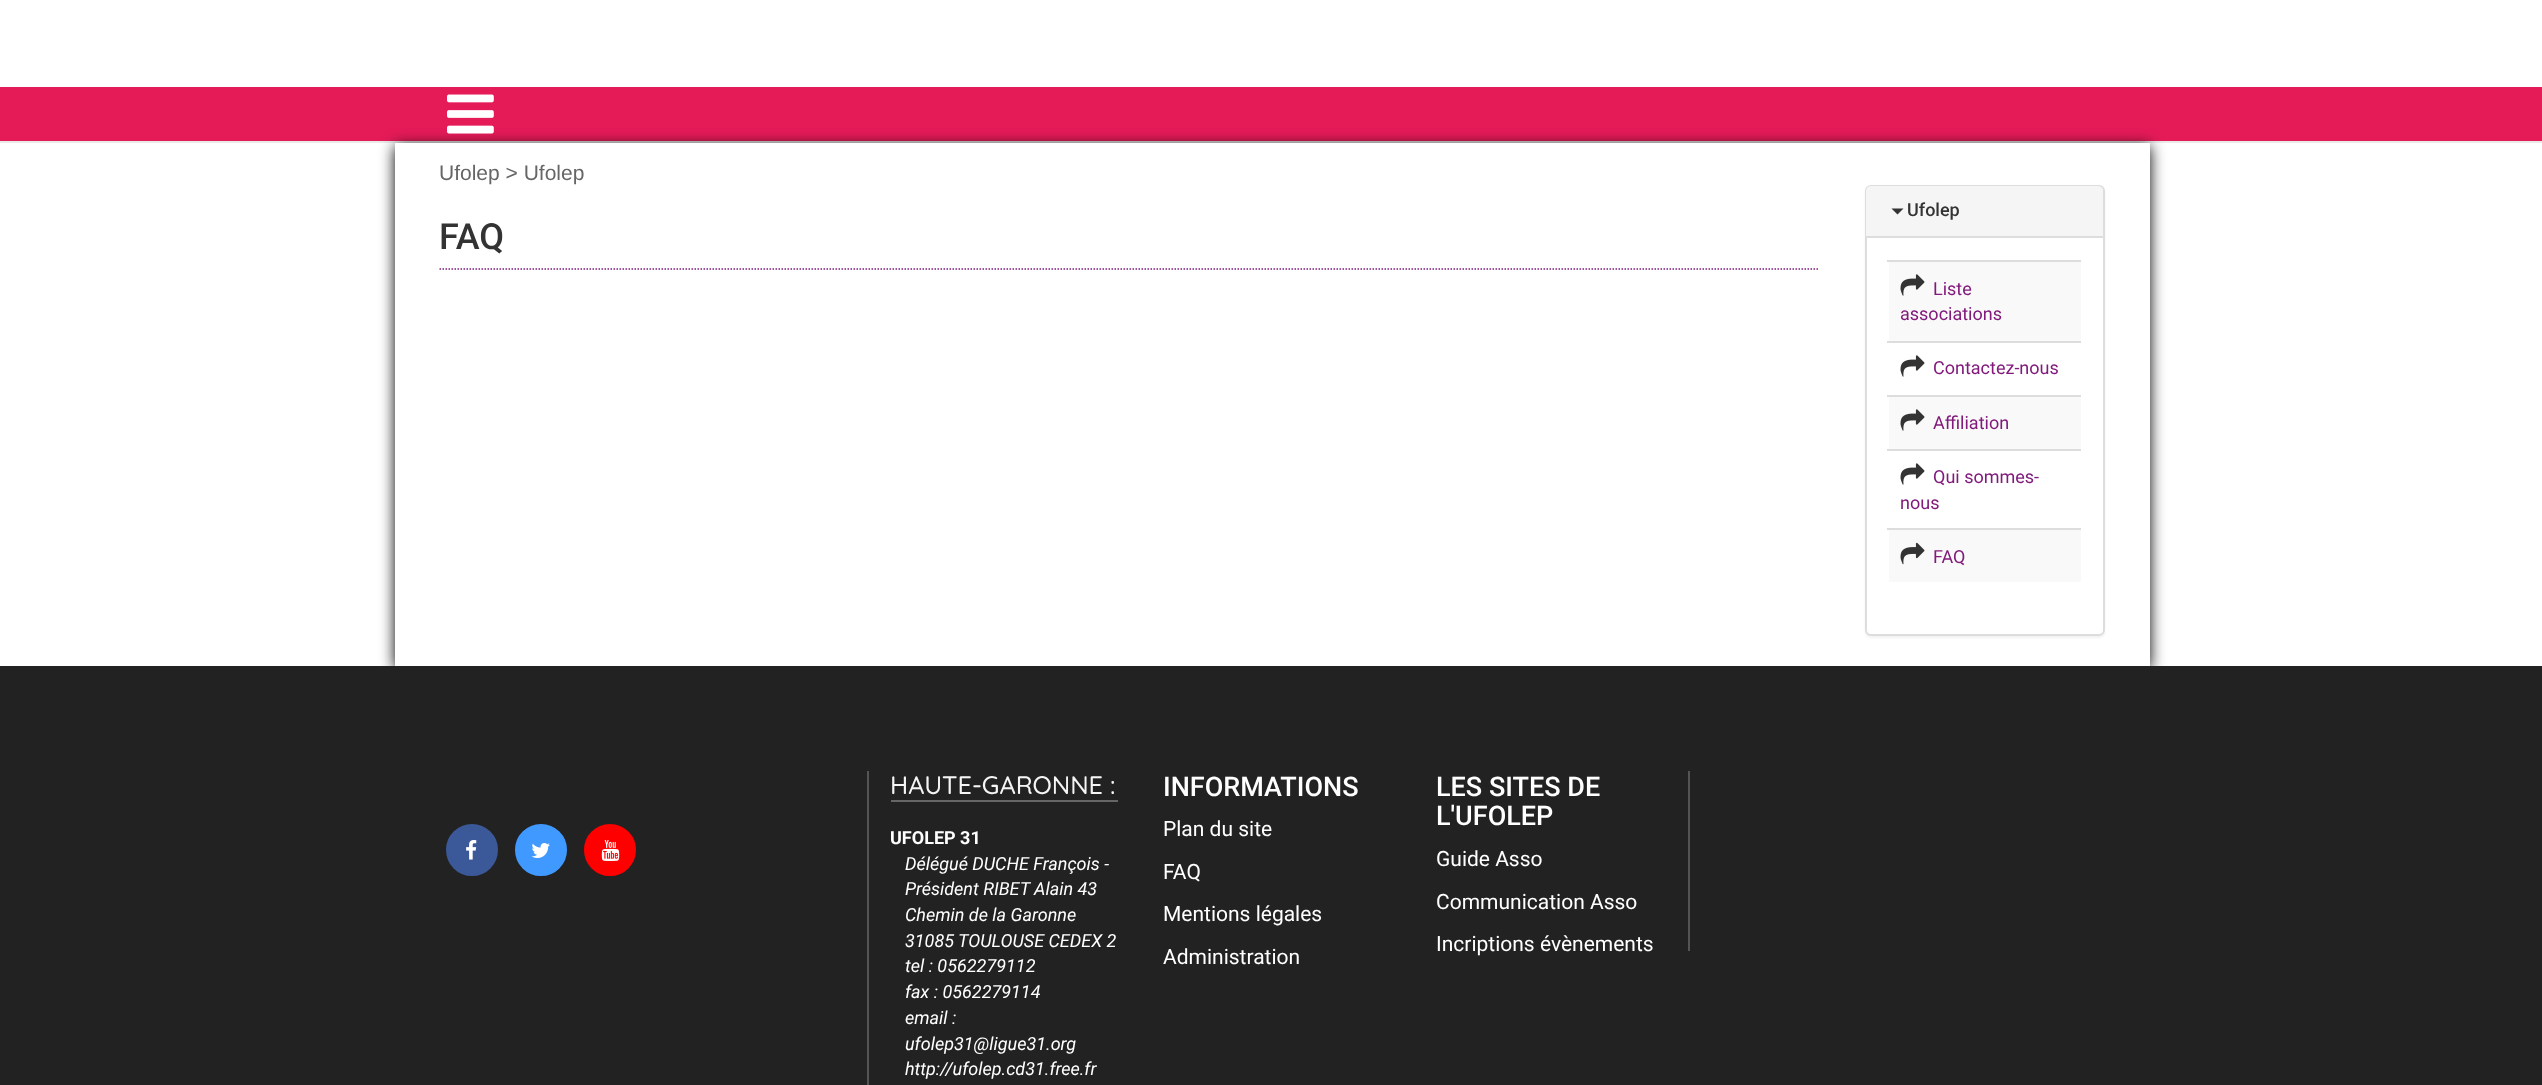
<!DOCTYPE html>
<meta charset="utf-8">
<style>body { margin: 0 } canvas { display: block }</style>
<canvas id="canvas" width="2542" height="1085"></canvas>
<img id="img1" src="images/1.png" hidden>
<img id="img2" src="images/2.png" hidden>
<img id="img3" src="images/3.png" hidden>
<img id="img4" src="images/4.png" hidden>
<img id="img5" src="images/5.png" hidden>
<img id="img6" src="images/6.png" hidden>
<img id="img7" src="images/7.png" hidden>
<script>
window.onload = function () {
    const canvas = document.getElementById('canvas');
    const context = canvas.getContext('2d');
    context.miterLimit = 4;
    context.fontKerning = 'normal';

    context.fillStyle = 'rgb(255, 255, 255)';
    context.fillRect(0, 0, 2542, 1085);
    context.fillStyle = 'rgb(229, 27, 88)';
    context.fillRect(0, 87, 2542, 54);
    context.fillStyle = 'rgb(234, 234, 234)';
    context.fillRect(0, 141, 2542, 2);
    context.fillStyle = 'rgb(0, 0, 0)';
    context.filter = 'blur(7.5px)';
    context.beginPath();
    context.rect(395, 146, 1755, 523);
    context.fill();
    context.filter = 'none';
    context.drawImage(document.getElementById('img1'), 447, 94, 47, 40);
    context.fillStyle = 'rgb(255, 255, 255)';
    context.fillRect(395, 143, 1755, 523);
    context.beginPath();
    context.moveTo(439.5, 269);
    context.lineTo(1819.5, 269);
    context.strokeStyle = 'rgb(129, 26, 123)';
    context.lineWidth = 1.5;
    context.setLineDash([1.5, 1.5]);
    context.stroke();
    context.fillStyle = 'rgba(0, 0, 0, 0.05)';
    context.filter = 'blur(1px)';
    context.beginPath();
    context.roundRect(1865, 186, 240, 452, 6);
    context.fill();
    context.filter = 'none';
    context.fillStyle = 'rgb(255, 255, 255)';
    context.beginPath();
    context.roundRect(1866, 186, 238, 449, 5);
    context.fill();
    context.strokeStyle = 'rgb(221, 221, 221)';
    context.lineWidth = 2;
    context.setLineDash([]);
    context.stroke();
    context.fillStyle = 'rgb(245, 245, 245)';
    context.beginPath();
    context.roundRect(1866, 186, 237, 51, [5, 5, 0, 0]);
    context.fill();
    context.fillStyle = 'rgb(221, 221, 221)';
    context.fillRect(1866, 236, 237, 2);
    context.fillStyle = 'rgb(51, 51, 51)';
    context.beginPath();
    context.moveTo(1891.5, 208.5);
    context.lineTo(1903.5, 208.5);
    context.lineTo(1897.5, 214.5);
    context.closePath();
    context.fill();
    context.fillStyle = 'rgb(249, 249, 249)';
    context.fillRect(1889, 262, 192, 79);
    context.fillStyle = 'rgb(221, 221, 221)';
    context.fillRect(1887, 260, 194, 2);
    context.drawImage(document.getElementById('img2'), 1900, 274, 25, 22);
    context.fillRect(1887, 341, 194, 2);
    context.drawImage(document.getElementById('img3'), 1900, 355, 25, 22);
    context.fillStyle = 'rgb(249, 249, 249)';
    context.fillRect(1889, 397, 192, 52);
    context.fillStyle = 'rgb(221, 221, 221)';
    context.fillRect(1887, 395, 194, 2);
    context.drawImage(document.getElementById('img2'), 1900, 409, 25, 22);
    context.fillRect(1887, 449, 194, 2);
    context.drawImage(document.getElementById('img3'), 1900, 463, 25, 22);
    context.fillStyle = 'rgb(249, 249, 249)';
    context.fillRect(1889, 530, 192, 52);
    context.fillStyle = 'rgb(221, 221, 221)';
    context.fillRect(1887, 528, 194, 2);
    context.drawImage(document.getElementById('img4'), 1900, 542, 25, 23);
    context.fillStyle = 'rgb(34, 34, 34)';
    context.fillRect(0, 666, 2542, 419);
    context.fillStyle = 'rgb(59, 89, 152)';
    context.beginPath();
    context.arc(472, 850, 24.5, 0, 2 * Math.PI);
    context.fill();
    context.strokeStyle = 'rgb(59, 89, 152)';
    context.lineWidth = 3;
    context.stroke();
    context.drawImage(document.getElementById('img5'), 466, 840, 11, 20);
    context.fillStyle = 'rgb(64, 153, 255)';
    context.beginPath();
    context.arc(541, 850, 24.5, 0, 2 * Math.PI);
    context.fill();
    context.strokeStyle = 'rgb(64, 153, 255)';
    context.stroke();
    context.drawImage(document.getElementById('img6'), 531, 843, 19, 15);
    context.fillStyle = 'rgb(255, 0, 0)';
    context.beginPath();
    context.arc(610, 850, 24.5, 0, 2 * Math.PI);
    context.fill();
    context.strokeStyle = 'rgb(255, 0, 0)';
    context.stroke();
    context.drawImage(document.getElementById('img7'), 601, 840, 19, 21);
    context.fillStyle = 'rgb(84, 84, 84)';
    context.fillRect(867, 771, 2, 314);
    context.fillStyle = 'rgb(102, 102, 102)';
    context.fillRect(891, 800, 227, 2);
    context.fillStyle = 'rgb(84, 84, 84)';
    context.fillRect(1688, 771, 2, 180);
    context.font = '21px Liberation Sans';
    context.fillStyle = 'rgb(102, 102, 102)';
    context.fillText('Ufolep > Ufolep', 439, 180);
    context.font = '500 36px Roboto';
    context.fillStyle = 'rgb(51, 51, 51)';
    context.fillText('FAQ', 439, 249);
    context.font = '500 18px Roboto';
    context.fillText('Ufolep', 1907, 216);
    context.font = '18px Roboto';
    context.fillStyle = 'rgb(129, 26, 123)';
    context.fillText('Liste', 1933, 295);
    context.fillText('associations', 1900, 320);
    context.fillText('Contactez-nous', 1933, 374);
    context.fillText('Affiliation', 1933, 429);
    context.fillText('Qui sommes-', 1933, 483);
    context.fillText('nous', 1900, 509);
    context.fillText('FAQ', 1933, 563);
    context.font = '500 25.25px Quicksand';
    context.fillStyle = 'rgb(245, 245, 245)';
    context.fillText('HAUTE-GARONNE :', 890, 794);
    context.font = 'bold 18px Roboto';
    context.fillStyle = 'rgb(255, 255, 255)';
    context.fillText('UFOLEP 31', 890, 844);
    context.font = 'italic 18px Roboto';
    context.fillText('Délégué DUCHE François -', 905, 870);
    context.fillText('Président RIBET Alain 43', 905, 895);
    context.fillText('Chemin de la Garonne', 905, 921);
    context.fillText('31085 TOULOUSE CEDEX 2', 905, 947);
    context.fillText('tel : 0562279112', 905, 972);
    context.fillText('fax : 0562279114', 905, 998);
    context.fillText('email :', 905, 1024);
    context.fillText('ufolep31@ligue31.org', 905, 1050);
    context.fillText('http://ufolep.cd31.free.fr', 905, 1075);
    context.font = '500 27px Roboto';
    context.fillText('INFORMATIONS', 1163, 796);
    context.font = '21px Roboto';
    context.fillText('Plan du site', 1163, 836);
    context.fillText('FAQ', 1163, 879);
    context.fillText('Mentions légales', 1163, 921);
    context.fillText('Administration', 1163, 964);
    context.font = '500 27px Roboto';
    context.fillText('LES SITES DE', 1436, 796);
    context.fillText('L\'UFOLEP', 1436, 825);
    context.font = '21px Roboto';
    context.fillText('Guide Asso', 1436, 866);
    context.fillText('Communication Asso', 1436, 909);
    context.fillText('Incriptions évènements', 1436, 951);
};
</script>
